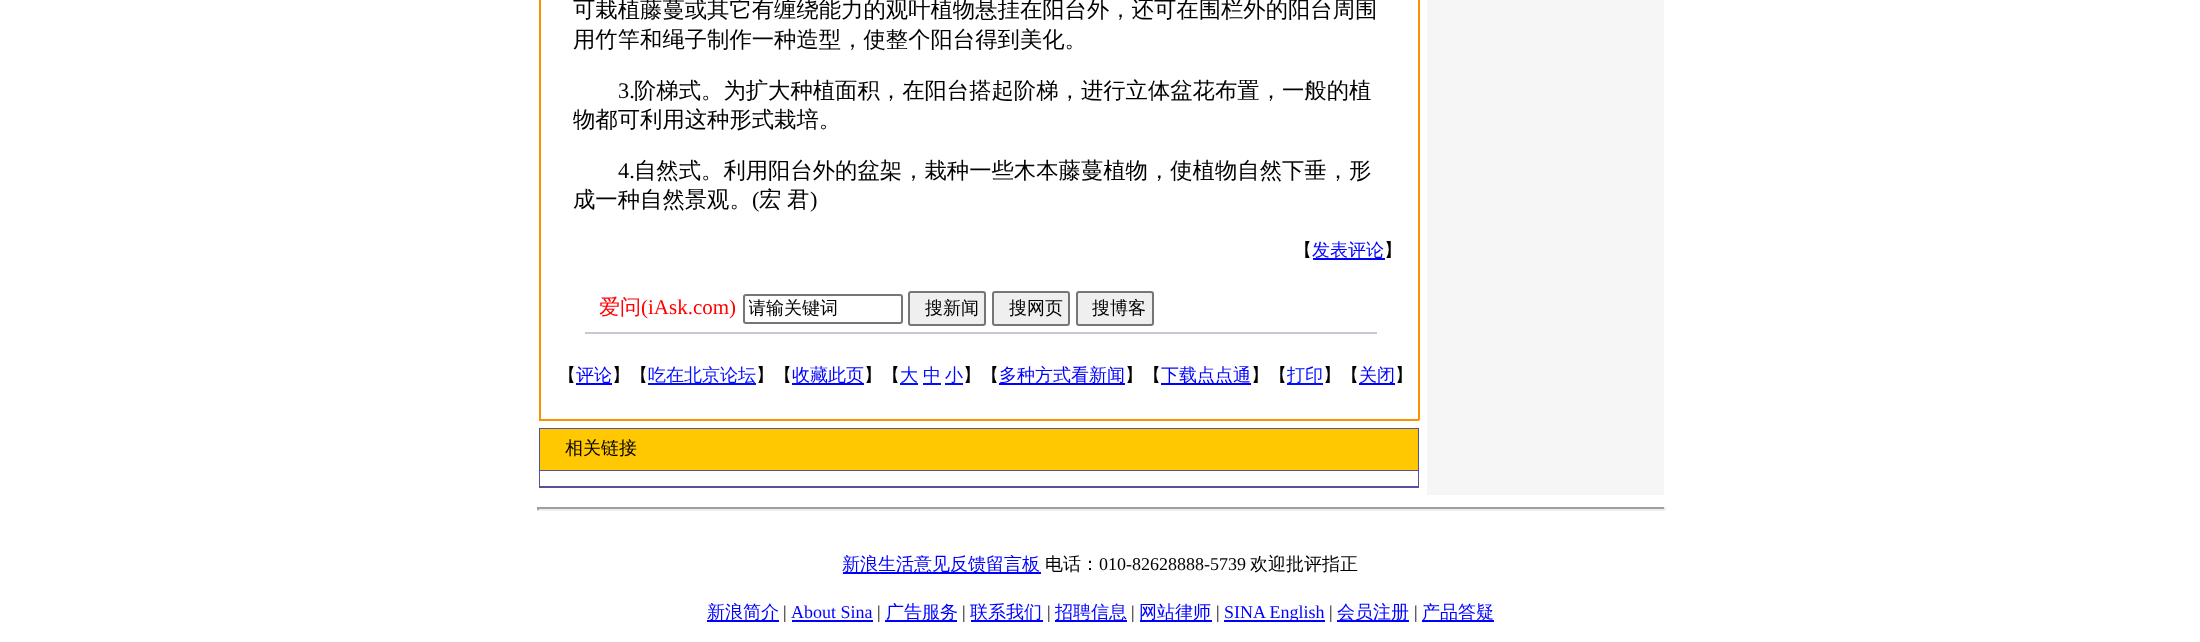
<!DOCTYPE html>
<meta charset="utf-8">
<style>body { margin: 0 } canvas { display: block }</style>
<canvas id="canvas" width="2200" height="642"></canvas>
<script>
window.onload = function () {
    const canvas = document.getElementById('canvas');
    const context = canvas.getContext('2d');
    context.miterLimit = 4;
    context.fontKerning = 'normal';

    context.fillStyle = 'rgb(255, 255, 255)';
    context.fillRect(0, 0, 2200, 642);
    context.fillStyle = 'rgb(250, 146, 0)';
    context.fillRect(1418, 0, 2, 420);
    context.fillRect(539, 419, 880, 2);
    context.fillRect(539, 0, 2, 420);
    context.fillStyle = 'rgb(0, 0, 255)';
    context.fillRect(1313, 258, 72, 2);
    context.fillStyle = 'rgb(198, 201, 209)';
    context.fillRect(585, 332, 792, 2);
    context.beginPath();
    context.roundRect(744, 295, 158, 28, 2);
    context.strokeStyle = 'rgb(118, 118, 118)';
    context.lineWidth = 2;
    context.stroke();
    context.fillStyle = 'rgb(239, 239, 239)';
    context.beginPath();
    context.roundRect(909, 292, 76, 33, 2);
    context.fill();
    context.stroke();
    context.beginPath();
    context.roundRect(993, 292, 76, 33, 2);
    context.fill();
    context.stroke();
    context.beginPath();
    context.roundRect(1077, 292, 76, 33, 2);
    context.fill();
    context.stroke();
    context.fillStyle = 'rgb(0, 0, 255)';
    context.fillRect(576, 383, 36, 2);
    context.fillStyle = 'rgb(1, 13, 255)';
    context.fillRect(648, 383, 108, 2);
    context.fillStyle = 'rgb(0, 0, 255)';
    context.fillRect(792, 383, 72, 2);
    context.fillStyle = 'rgb(1, 13, 255)';
    context.fillRect(900, 383, 18, 2);
    context.fillRect(923, 383, 18, 2);
    context.fillRect(945, 383, 18, 2);
    context.fillStyle = 'rgb(0, 0, 255)';
    context.fillRect(999, 383, 126, 2);
    context.fillRect(1161, 383, 90, 2);
    context.fillStyle = 'rgb(1, 13, 255)';
    context.fillRect(1287, 383, 36, 2);
    context.fillStyle = 'rgb(0, 0, 255)';
    context.fillRect(1359, 383, 36, 2);
    context.fillStyle = 'rgb(85, 80, 162)';
    context.fillRect(539, 428, 880, 60);
    context.fillStyle = 'rgb(255, 200, 0)';
    context.fillRect(540, 429, 878, 41);
    context.fillStyle = 'rgb(255, 255, 255)';
    context.fillRect(540, 471, 878, 15);
    context.fillStyle = 'rgb(247, 246, 246)';
    context.fillRect(1427, 0, 237, 495);
    context.fillStyle = 'rgb(159, 159, 159)';
    context.fillRect(537, 507, 1128, 2);
    context.fillStyle = 'rgb(238, 238, 238)';
    context.fillRect(1664, 507, 2, 3);
    context.fillRect(537, 509, 1128, 2);
    context.fillStyle = 'rgb(159, 159, 159)';
    context.fillRect(537, 507, 2, 3);
    context.fillStyle = 'rgb(0, 0, 255)';
    context.fillRect(843, 572, 198, 2);
    context.fillRect(707, 620, 72, 2);
    context.fillRect(792, 620, 81, 2);
    context.fillRect(885, 620, 72, 2);
    context.fillRect(971, 620, 72, 2);
    context.fillRect(1055, 620, 72, 2);
    context.fillRect(1140, 620, 72, 2);
    context.fillRect(1224, 620, 101, 2);
    context.fillRect(1337, 620, 72, 2);
    context.fillRect(1422, 620, 72, 2);
    context.font = '500 22.35px WenQuanYi Zen Hei';
    context.fillStyle = 'rgb(0, 0, 0)';
    context.fillText('可栽植藤蔓或其它有缠绕能力的观叶植物悬挂在阳台外，还可在围栏外的阳台周围', 573, 17);
    context.fillText('用竹竿和绳子制作一种造型，使整个阳台得到美化。', 573, 47);
    context.font = '22.35px Liberation Serif';
    context.fillText('3.', 618, 98);
    context.font = '500 22.35px WenQuanYi Zen Hei';
    context.fillText('阶梯式。为扩大种植面积，在阳台搭起阶梯，进行立体盆花布置，一般的植', 634, 98);
    context.fillText('物都可利用这种形式栽培。', 573, 127);
    context.font = '22.35px Liberation Serif';
    context.fillText('4.', 618, 178);
    context.font = '500 22.35px WenQuanYi Zen Hei';
    context.fillText('自然式。利用阳台外的盆架，栽种一些木本藤蔓植物，使植物自然下垂，形', 634, 178);
    context.fillText('成一种自然景观。', 573, 207);
    context.font = '22.35px Liberation Serif';
    context.fillText('(', 752, 207);
    context.wordSpacing = '-1px';
    context.font = '500 22.35px WenQuanYi Zen Hei';
    context.fillText('宏 君', 759, 207);
    context.wordSpacing = '0px';
    context.font = '22.35px Liberation Serif';
    context.fillText(')', 810, 207);
    context.font = '500 18px WenQuanYi Zen Hei';
    context.fillText('【', 1294, 256);
    context.fillStyle = 'rgb(0, 0, 255)';
    context.fillText('发表评论', 1312, 256);
    context.fillStyle = 'rgb(0, 0, 0)';
    context.fillText('】', 1384, 256);
    context.font = '500 21px WenQuanYi Zen Hei';
    context.fillStyle = 'rgb(255, 0, 0)';
    context.fillText('爱问', 599, 314);
    context.font = '21px Liberation Serif';
    context.fillText('(iAsk.com)', 641, 314);
    context.save();
    context.beginPath();
    context.rect(749, 297, 148, 24);
    context.clip();
    context.font = '500 18px WenQuanYi Zen Hei';
    context.fillStyle = 'rgb(0, 0, 0)';
    context.fillText('请输关键词', 748, 314);
    context.restore();
    context.font = '500 18px WenQuanYi Zen Hei';
    context.fillStyle = 'rgb(0, 0, 0)';
    context.fillText('搜新闻', 925, 314);
    context.fillText('搜网页', 1009, 314);
    context.fillText('搜博客', 1092, 314);
    context.fillText('【', 558, 381);
    context.fillStyle = 'rgb(0, 0, 255)';
    context.fillText('评论', 576, 381);
    context.fillStyle = 'rgb(0, 0, 0)';
    context.fillText('】【', 612, 381);
    context.fillStyle = 'rgb(1, 13, 255)';
    context.fillText('吃在北京论坛', 648, 381);
    context.fillStyle = 'rgb(0, 0, 0)';
    context.fillText('】【', 756, 381);
    context.fillStyle = 'rgb(0, 0, 255)';
    context.fillText('收藏此页', 792, 381);
    context.fillStyle = 'rgb(0, 0, 0)';
    context.fillText('】【', 864, 381);
    context.fillStyle = 'rgb(1, 13, 255)';
    context.fillText('大', 900, 381);
    context.fillText('中', 923, 381);
    context.fillText('小', 945, 381);
    context.fillStyle = 'rgb(0, 0, 0)';
    context.fillText('】【', 963, 381);
    context.fillStyle = 'rgb(0, 0, 255)';
    context.fillText('多种方式看新闻', 999, 381);
    context.fillStyle = 'rgb(0, 0, 0)';
    context.fillText('】【', 1125, 381);
    context.fillStyle = 'rgb(0, 0, 255)';
    context.fillText('下载点点通', 1161, 381);
    context.fillStyle = 'rgb(0, 0, 0)';
    context.fillText('】【', 1251, 381);
    context.fillStyle = 'rgb(1, 13, 255)';
    context.fillText('打印', 1287, 381);
    context.fillStyle = 'rgb(0, 0, 0)';
    context.fillText('】【', 1323, 381);
    context.fillStyle = 'rgb(0, 0, 255)';
    context.fillText('关闭', 1359, 381);
    context.fillStyle = 'rgb(0, 0, 0)';
    context.fillText('】', 1395, 381);
    context.fillText('相关链接', 565, 454);
    context.fillStyle = 'rgb(0, 0, 255)';
    context.fillText('新浪生活意见反馈留言板', 842, 570);
    context.fillStyle = 'rgb(0, 0, 0)';
    context.fillText('电话：', 1045, 570);
    context.font = '18px Liberation Serif';
    context.fillText('010-82628888-5739', 1099, 570);
    context.font = '500 18px WenQuanYi Zen Hei';
    context.fillText('欢迎批评指正', 1250, 570);
    context.fillStyle = 'rgb(0, 0, 255)';
    context.fillText('新浪简介', 707, 618);
    context.font = '18px Liberation Serif';
    context.fillStyle = 'rgb(0, 0, 0)';
    context.fillText('|', 783, 618);
    context.fillStyle = 'rgb(0, 0, 255)';
    context.fillText('About Sina', 791, 618);
    context.fillStyle = 'rgb(0, 0, 0)';
    context.fillText('|', 877, 618);
    context.font = '500 18px WenQuanYi Zen Hei';
    context.fillStyle = 'rgb(0, 0, 255)';
    context.fillText('广告服务', 886, 618);
    context.font = '18px Liberation Serif';
    context.fillStyle = 'rgb(0, 0, 0)';
    context.fillText('|', 962, 618);
    context.font = '500 18px WenQuanYi Zen Hei';
    context.fillStyle = 'rgb(0, 0, 255)';
    context.fillText('联系我们', 970, 618);
    context.font = '18px Liberation Serif';
    context.fillStyle = 'rgb(0, 0, 0)';
    context.fillText('|', 1047, 618);
    context.font = '500 18px WenQuanYi Zen Hei';
    context.fillStyle = 'rgb(0, 0, 255)';
    context.fillText('招聘信息', 1055, 618);
    context.font = '18px Liberation Serif';
    context.fillStyle = 'rgb(0, 0, 0)';
    context.fillText('|', 1131, 618);
    context.font = '500 18px WenQuanYi Zen Hei';
    context.fillStyle = 'rgb(0, 0, 255)';
    context.fillText('网站律师', 1139, 618);
    context.font = '18px Liberation Serif';
    context.fillStyle = 'rgb(0, 0, 0)';
    context.fillText('|', 1216, 618);
    context.fillStyle = 'rgb(0, 0, 255)';
    context.fillText('SINA English', 1224, 618);
    context.fillStyle = 'rgb(0, 0, 0)';
    context.fillText('|', 1329, 618);
    context.font = '500 18px WenQuanYi Zen Hei';
    context.fillStyle = 'rgb(0, 0, 255)';
    context.fillText('会员注册', 1337, 618);
    context.font = '18px Liberation Serif';
    context.fillStyle = 'rgb(0, 0, 0)';
    context.fillText('|', 1414, 618);
    context.font = '500 18px WenQuanYi Zen Hei';
    context.fillStyle = 'rgb(0, 0, 255)';
    context.fillText('产品答疑', 1422, 618);
};
</script>
